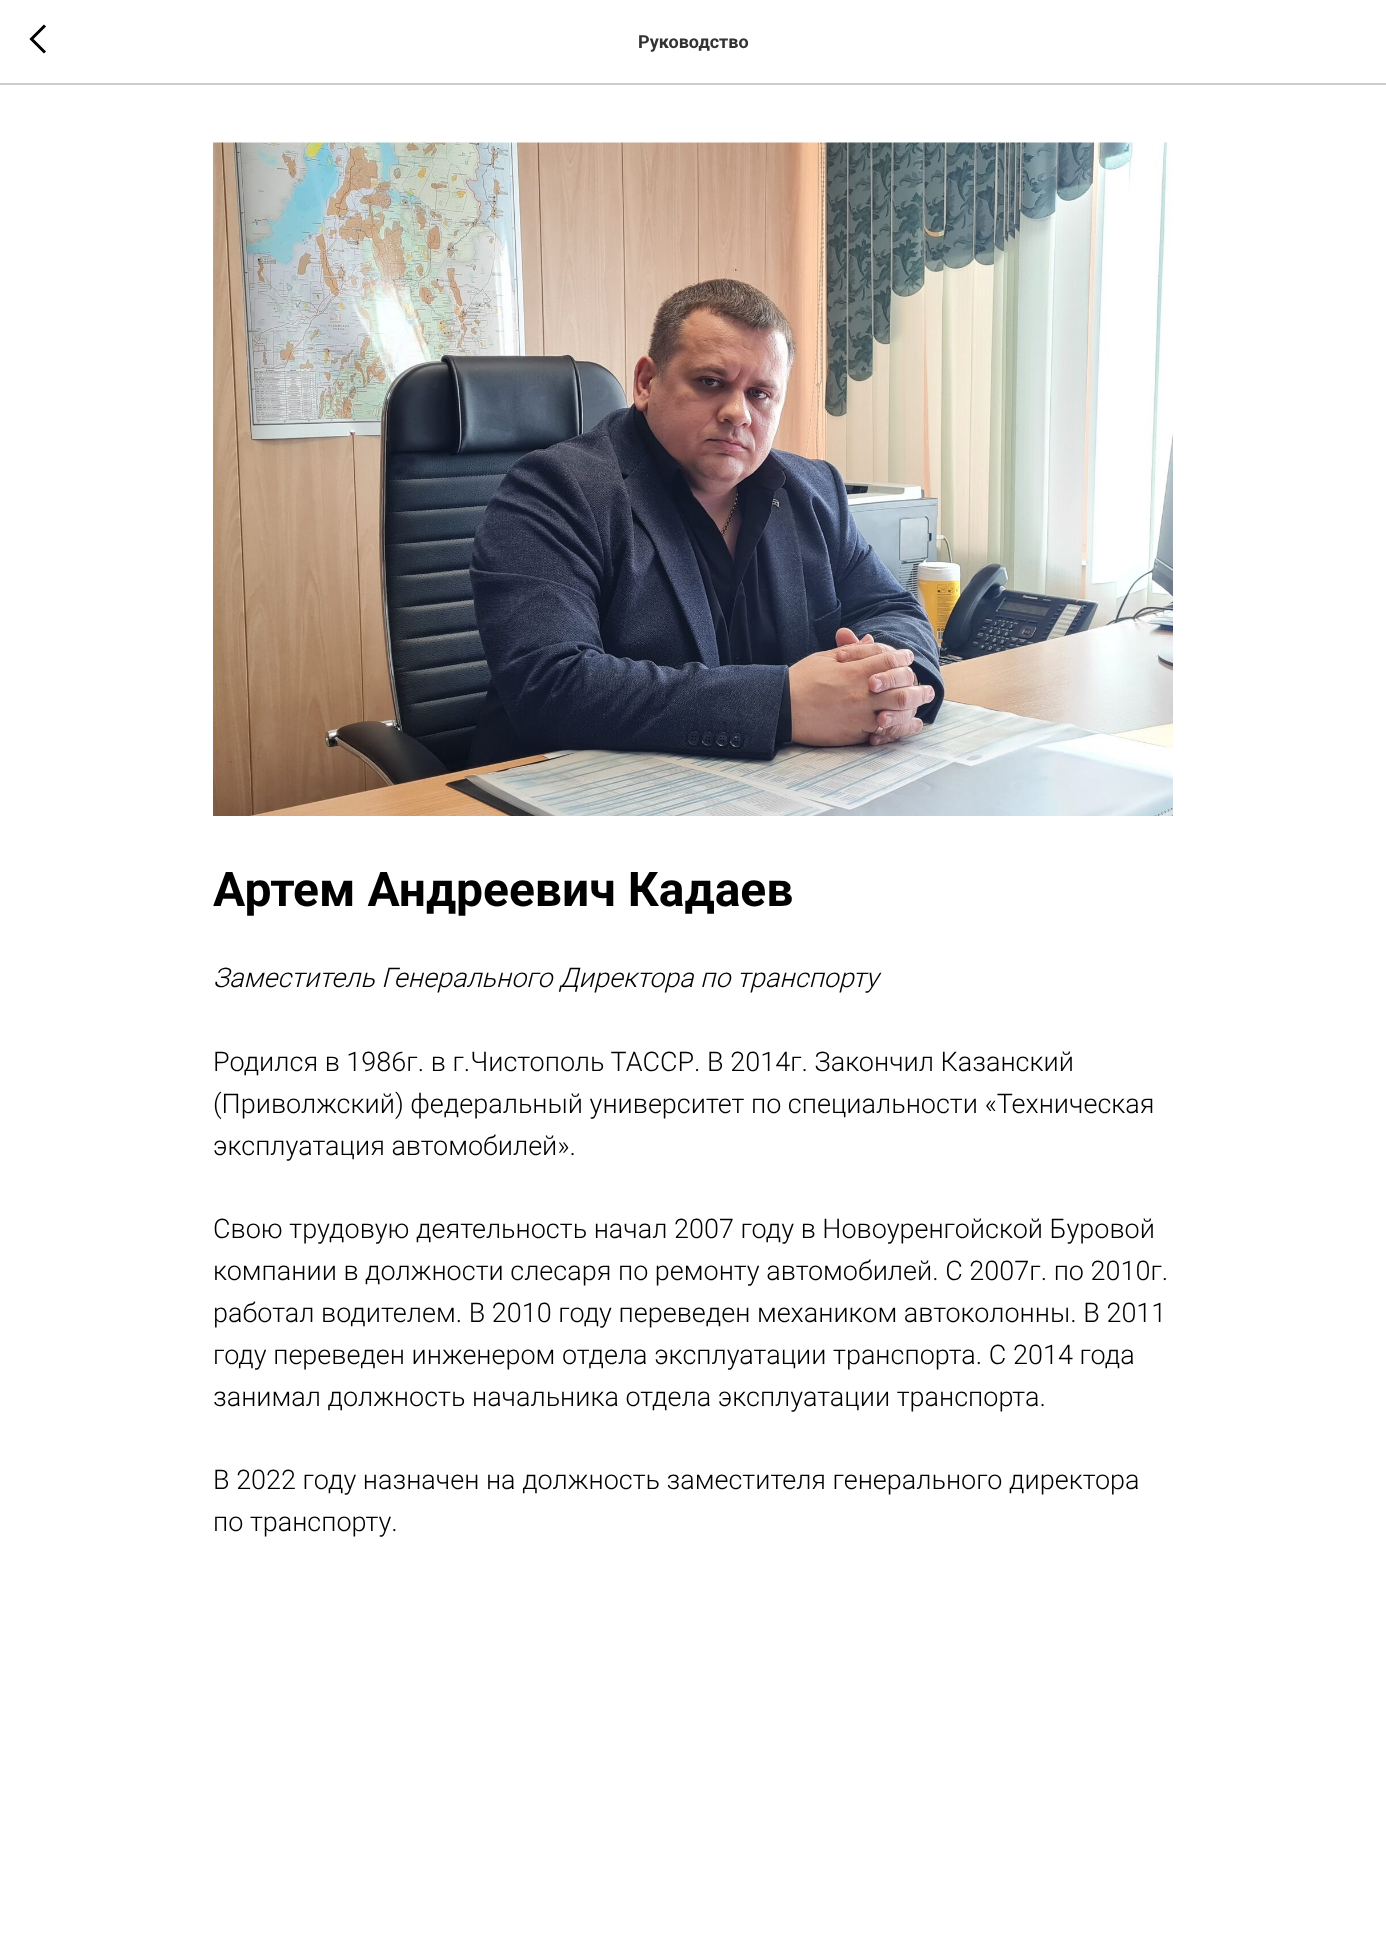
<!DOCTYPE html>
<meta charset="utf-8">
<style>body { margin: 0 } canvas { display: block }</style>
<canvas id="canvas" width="1386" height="1936"></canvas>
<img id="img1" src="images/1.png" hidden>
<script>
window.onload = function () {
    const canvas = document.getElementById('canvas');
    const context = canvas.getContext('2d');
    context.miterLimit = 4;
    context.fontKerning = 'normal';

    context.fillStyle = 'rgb(255, 255, 255)';
    context.fillRect(0, 0, 1386, 1936);
    context.fillStyle = 'rgb(204, 204, 204)';
    context.fillRect(0, 83, 1386, 2);
    context.beginPath();
    context.moveTo(45, 52.5);
    context.lineTo(31.5, 39);
    context.lineTo(45, 25.5);
    context.strokeStyle = 'rgb(0, 0, 0)';
    context.lineWidth = 3;
    context.stroke();
    context.drawImage(document.getElementById('img1'), 213, 142, 960, 674);
    context.font = 'bold 18px Roboto';
    context.fillStyle = 'rgb(51, 51, 51)';
    context.fillText('Руководство', 638, 48);
    context.font = 'bold 48px Roboto';
    context.fillStyle = 'rgb(0, 0, 0)';
    context.fillText('Артем Андреевич Кадаев', 213, 906);
    context.font = 'italic 300 27px Roboto';
    context.fillText('Заместитель Генерального Директора по транспорту', 213, 987);
    context.font = '300 27px Roboto';
    context.fillText('Родился в 1986г. в г.Чистополь ТАССР. В 2014г. Закончил Казанский', 213, 1071);
    context.fillText('(Приволжский) федеральный университет по специальности «Техническая', 213, 1113);
    context.fillText('эксплуатация автомобилей».', 213, 1155);
    context.fillText('Свою трудовую деятельность начал 2007 году в Новоуренгойской Буровой', 213, 1238);
    context.fillText('компании в должности слесаря по ремонту автомобилей. С 2007г. по 2010г.', 213, 1280);
    context.fillText('работал водителем. В 2010 году переведен механиком автоколонны. В 2011', 213, 1322);
    context.fillText('году переведен инженером отдела эксплуатации транспорта. С 2014 года', 213, 1364);
    context.fillText('занимал должность начальника отдела эксплуатации транспорта.', 213, 1406);
    context.fillText('В 2022 году назначен на должность заместителя генерального директора', 213, 1489);
    context.fillText('по транспорту.', 213, 1531);
};
</script>
